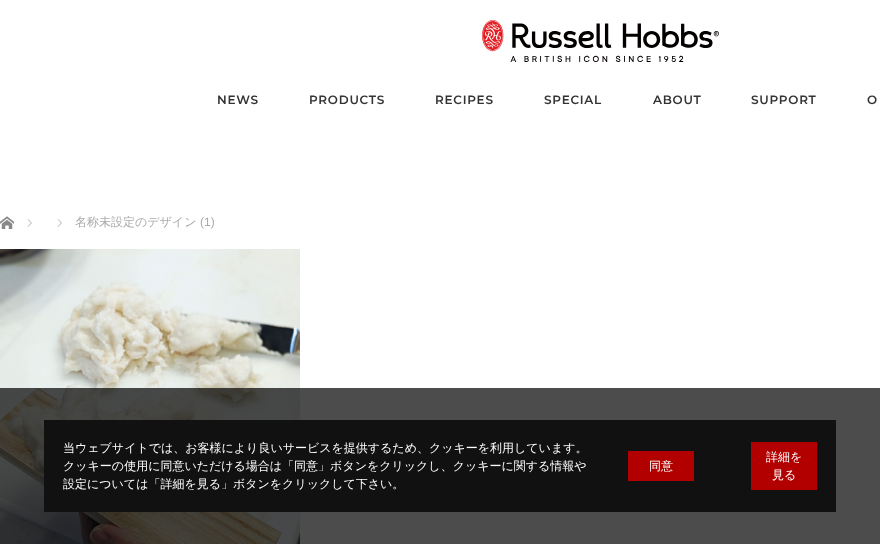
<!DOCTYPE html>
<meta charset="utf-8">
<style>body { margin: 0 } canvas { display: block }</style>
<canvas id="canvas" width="880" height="544"></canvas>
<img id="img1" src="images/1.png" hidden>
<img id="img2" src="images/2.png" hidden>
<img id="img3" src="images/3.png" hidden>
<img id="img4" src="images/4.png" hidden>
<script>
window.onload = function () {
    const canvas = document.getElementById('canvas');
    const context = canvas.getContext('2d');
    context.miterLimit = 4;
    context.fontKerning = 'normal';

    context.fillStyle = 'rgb(255, 255, 255)';
    context.fillRect(0, 0, 880, 544);
    context.drawImage(document.getElementById('img1'), 482, 20, 237, 42);
    context.drawImage(document.getElementById('img2'), 0, 216, 14, 13);
    context.drawImage(document.getElementById('img3'), 27, 219, 5, 8);
    context.drawImage(document.getElementById('img3'), 57, 219, 5, 8);
    context.drawImage(document.getElementById('img4'), 0, 249, 300, 295);
    context.fillStyle = 'rgba(0, 0, 0, 0.7)';
    context.fillRect(0, 388, 880, 156);
    context.fillStyle = 'rgb(17, 17, 17)';
    context.fillRect(44, 420, 792, 92);
    context.fillStyle = 'rgb(178, 0, 0)';
    context.fillRect(628, 451, 66, 30);
    context.fillRect(751, 442, 66, 48);
    context.letterSpacing = '0.75px';
    context.font = '600 12px Montserrat';
    context.fillStyle = 'rgb(51, 51, 51)';
    context.fillText('NEWS', 217, 104);
    context.fillText('PRODUCTS', 309, 104);
    context.fillText('RECIPES', 435, 104);
    context.fillText('SPECIAL', 544, 104);
    context.fillText('ABOUT', 653, 104);
    context.fillText('SUPPORT', 751, 104);
    context.fillText('O', 867, 104);
    context.letterSpacing = '0px';
    context.font = '500 12px WenQuanYi Zen Hei';
    context.fillStyle = 'rgb(170, 170, 170)';
    context.fillText('名称未設定のデザイン', 75, 226);
    context.font = '12px Liberation Sans';
    context.fillText('(1)', 200, 226);
    context.font = '500 12px WenQuanYi Zen Hei';
    context.fillStyle = 'rgb(255, 255, 255)';
    context.fillText('当ウェブサイトでは、お客様により良いサービスを提供するため、クッキーを利用しています。', 63, 452);
    context.fillText('クッキーの使用に同意いただける場合は「同意」ボタンをクリックし、クッキーに関する情報や', 63, 470);
    context.fillText('設定については「詳細を見る」ボタンをクリックして下さい。', 63, 488);
    context.fillText('同意', 649, 470);
    context.fillText('詳細を', 766, 461);
    context.fillText('見る', 772, 479);
};
</script>
